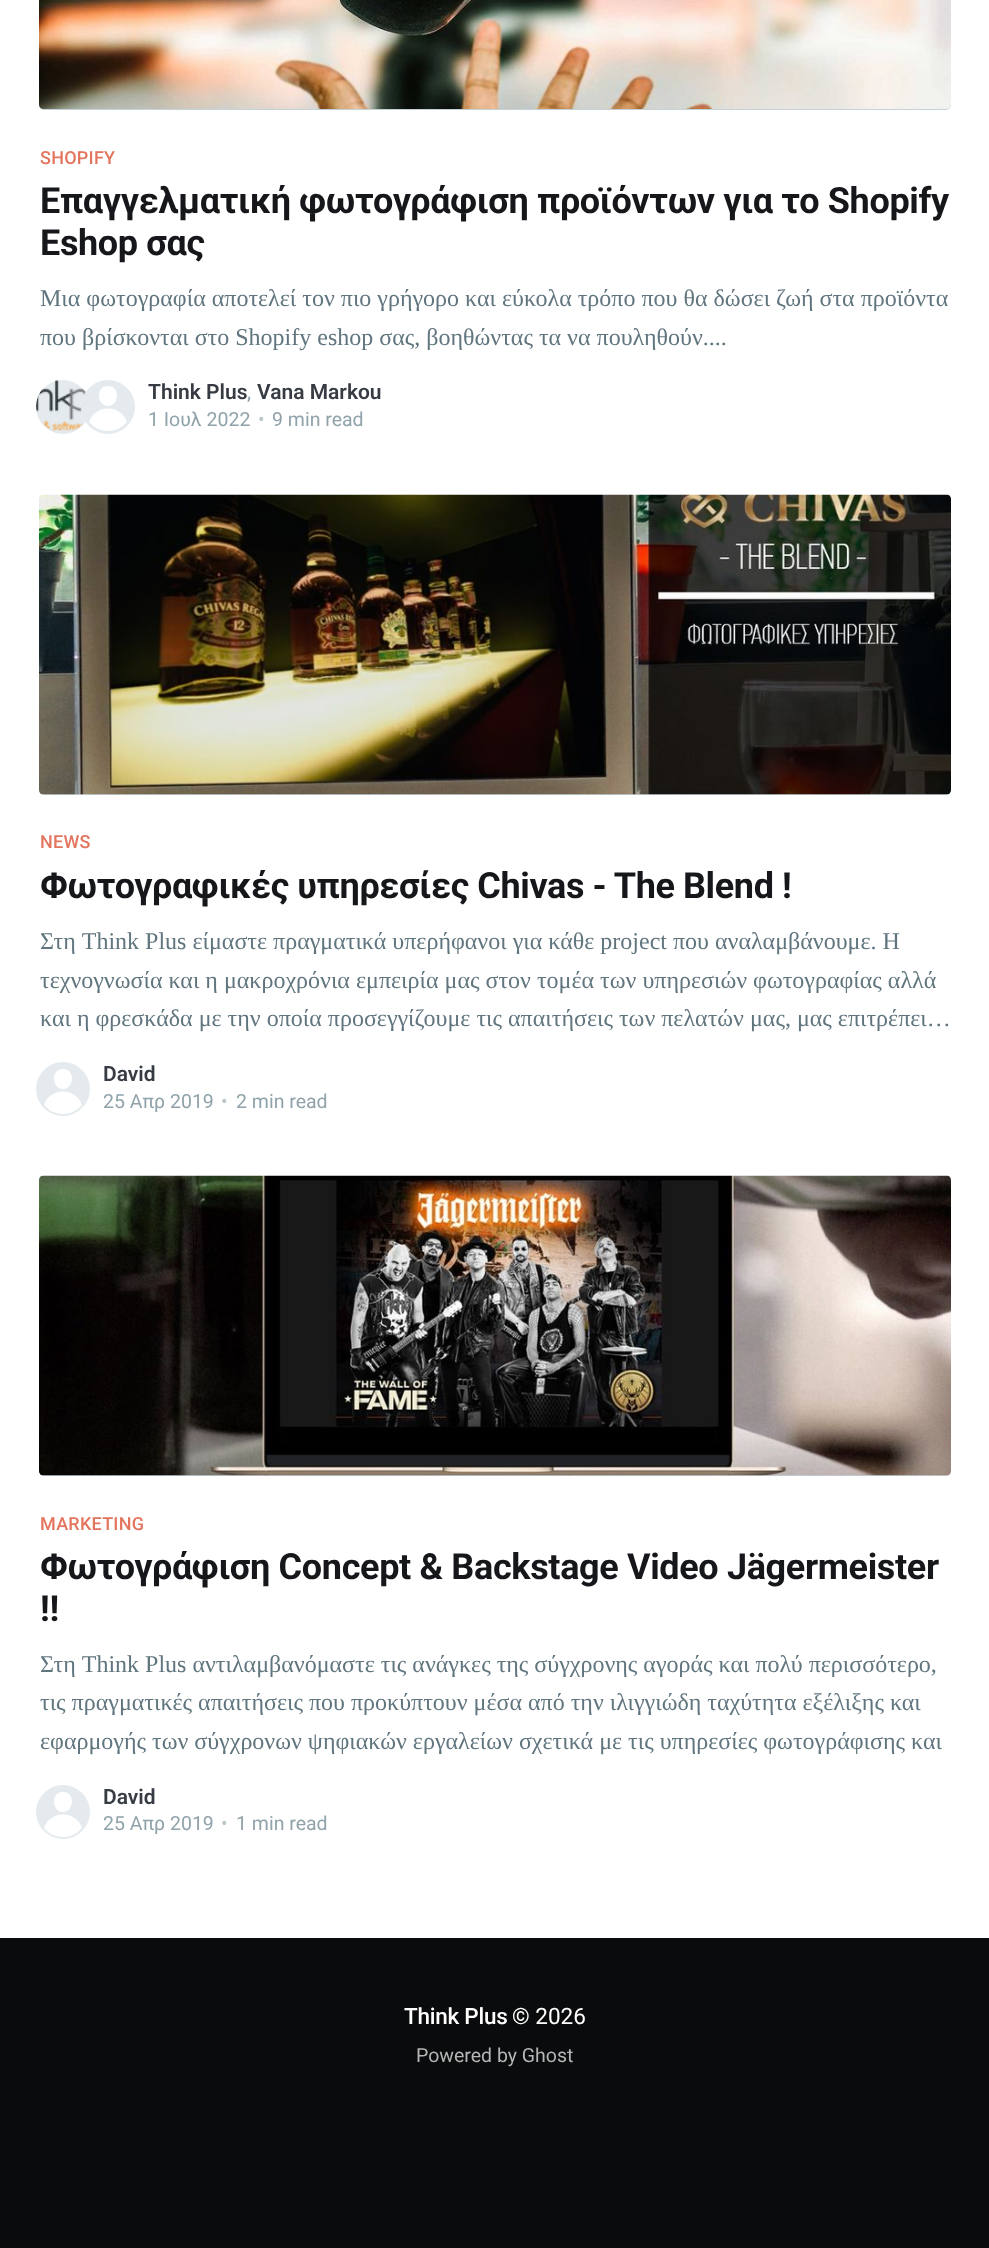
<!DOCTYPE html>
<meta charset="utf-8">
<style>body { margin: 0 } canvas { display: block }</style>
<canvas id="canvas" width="989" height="2248"></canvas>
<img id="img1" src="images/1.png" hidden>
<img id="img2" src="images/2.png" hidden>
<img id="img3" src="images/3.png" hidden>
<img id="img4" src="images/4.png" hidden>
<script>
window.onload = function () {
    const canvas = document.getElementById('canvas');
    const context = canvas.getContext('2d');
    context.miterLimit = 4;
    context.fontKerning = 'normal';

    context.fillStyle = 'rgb(255, 255, 255)';
    context.fillRect(0, 0, 989, 2248);
    context.fillStyle = 'rgb(197, 210, 217)';
    context.beginPath();
    context.roundRect(39, -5, 912, 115, 5);
    context.fill();
    context.drawImage(document.getElementById('img1'), 39, 0, 912, 109);
    context.fillStyle = 'rgb(228, 234, 237)';
    context.beginPath();
    context.arc(63, 407, 27, 0, 2 * Math.PI);
    context.fill();
    context.drawImage(document.getElementById('img2'), 36, 380, 50, 51);
    context.beginPath();
    context.arc(108.5, 406.5, 27.5, 0, 2 * Math.PI);
    context.strokeStyle = 'rgba(255, 255, 255, 0.2)';
    context.lineWidth = 2;
    context.stroke();
    context.beginPath();
    context.arc(108, 407, 27, 0, 2 * Math.PI);
    context.fill();
    context.fillStyle = 'rgb(255, 255, 255)';
    context.beginPath();
    context.moveTo(89, 422);
    context.bezierCurveTo(95, 404, 121, 404, 127, 422);
    context.bezierCurveTo(117, 434, 99, 434, 89, 422);
    context.closePath();
    context.moveTo(108, 406);
    context.bezierCurveTo(119, 406, 121, 386, 108, 386);
    context.bezierCurveTo(95, 386, 97, 406, 108, 406);
    context.closePath();
    context.fill('evenodd');
    context.fillStyle = 'rgb(197, 210, 217)';
    context.beginPath();
    context.roundRect(39, 495, 912, 300, 5);
    context.fill();
    context.drawImage(document.getElementById('img3'), 39, 494, 912, 301);
    context.fillStyle = 'rgb(228, 234, 237)';
    context.beginPath();
    context.arc(63, 1089, 27, 0, 2 * Math.PI);
    context.fill();
    context.fillStyle = 'rgb(255, 255, 255)';
    context.beginPath();
    context.moveTo(44, 1105);
    context.bezierCurveTo(50, 1087, 76, 1087, 82, 1105);
    context.bezierCurveTo(72, 1117, 54, 1117, 44, 1105);
    context.closePath();
    context.moveTo(63, 1089);
    context.bezierCurveTo(74, 1089, 76, 1069, 63, 1069);
    context.bezierCurveTo(50, 1069, 52, 1089, 63, 1089);
    context.closePath();
    context.fill('evenodd');
    context.fillStyle = 'rgb(197, 210, 217)';
    context.beginPath();
    context.roundRect(39, 1176, 912, 300, 5);
    context.fill();
    context.drawImage(document.getElementById('img4'), 39, 1175, 912, 301);
    context.fillStyle = 'rgb(228, 234, 237)';
    context.beginPath();
    context.arc(63, 1812, 27, 0, 2 * Math.PI);
    context.fill();
    context.fillStyle = 'rgb(255, 255, 255)';
    context.beginPath();
    context.moveTo(44, 1828);
    context.bezierCurveTo(50, 1810, 76, 1810, 82, 1828);
    context.bezierCurveTo(72, 1840, 54, 1840, 44, 1828);
    context.closePath();
    context.moveTo(63, 1812);
    context.bezierCurveTo(74, 1812, 76, 1792, 63, 1792);
    context.bezierCurveTo(50, 1792, 52, 1812, 63, 1812);
    context.closePath();
    context.fill('evenodd');
    context.fillStyle = 'rgb(10, 11, 12)';
    context.fillRect(0, 1938, 989, 310);
    context.letterSpacing = '0.25px';
    context.font = '500 18px Roboto';
    context.fillStyle = 'rgb(227, 116, 93)';
    context.fillText('SHOPIFY', 40, 164);
    context.letterSpacing = '-0.35px';
    context.font = 'bold 36px Roboto';
    context.fillStyle = 'rgb(21, 23, 26)';
    context.fillText('Επαγγελματική φωτογράφιση προϊόντων για το Shopify', 40, 213);
    context.fillText('Eshop σας', 40, 255);
    context.letterSpacing = '0px';
    context.font = '24px Liberation Serif';
    context.fillStyle = 'rgb(96, 117, 126)';
    context.fillText('Μια φωτογραφία αποτελεί τον πιο γρήγορο και εύκολα τρόπο που θα δώσει ζωή στα προϊόντα', 40, 306);
    context.fillText('που βρίσκονται στο Shopify eshop σας, βοηθώντας τα να πουληθούν....', 40, 345);
    context.font = '600 21px Roboto';
    context.fillStyle = 'rgb(55, 60, 68)';
    context.fillText('Think Plus', 148, 399);
    context.font = '21px Roboto';
    context.fillStyle = 'rgb(144, 162, 170)';
    context.fillText(',', 247, 399);
    context.font = '600 21px Roboto';
    context.fillStyle = 'rgb(55, 60, 68)';
    context.fillText('Vana Markou', 257, 399);
    context.font = '19.5px Roboto';
    context.fillStyle = 'rgb(144, 162, 170)';
    context.fillText('1 Ιουλ 2022', 148, 426);
    context.fillStyle = 'rgb(188, 199, 204)';
    context.fillText('•', 258, 426);
    context.fillStyle = 'rgb(144, 162, 170)';
    context.fillText('9 min read', 272, 426);
    context.letterSpacing = '0.25px';
    context.font = '500 18px Roboto';
    context.fillStyle = 'rgb(227, 116, 93)';
    context.fillText('NEWS', 40, 848);
    context.letterSpacing = '-0.35px';
    context.wordSpacing = '-0.25px';
    context.font = 'bold 36px Roboto';
    context.fillStyle = 'rgb(21, 23, 26)';
    context.fillText('Φωτογραφικές υπηρεσίες Chivas - The Blend !', 40, 898);
    context.letterSpacing = '0px';
    context.wordSpacing = '0px';
    context.font = '24px Liberation Serif';
    context.fillStyle = 'rgb(96, 117, 126)';
    context.fillText('Στη Think Plus είμαστε πραγματικά υπερήφανοι για κάθε project που αναλαμβάνουμε. Η', 40, 949);
    context.fillText('τεχνογνωσία και η μακροχρόνια εμπειρία μας στον τομέα των υπηρεσιών φωτογραφίας αλλά', 40, 988);
    context.fillText('και η φρεσκάδα με την οποία προσεγγίζουμε τις απαιτήσεις των πελατών μας, μας επιτρέπει…', 40, 1026);
    context.font = '600 21px Roboto';
    context.fillStyle = 'rgb(55, 60, 68)';
    context.fillText('David', 103, 1081);
    context.font = '19.5px Roboto';
    context.fillStyle = 'rgb(144, 162, 170)';
    context.fillText('25 Απρ 2019', 103, 1108);
    context.fillStyle = 'rgb(188, 199, 204)';
    context.fillText('•', 221, 1108);
    context.fillStyle = 'rgb(144, 162, 170)';
    context.fillText('2 min read', 236, 1108);
    context.letterSpacing = '0.25px';
    context.font = '500 18px Roboto';
    context.fillStyle = 'rgb(227, 116, 93)';
    context.fillText('MARKETING', 40, 1530);
    context.letterSpacing = '-0.35px';
    context.font = 'bold 36px Roboto';
    context.fillStyle = 'rgb(21, 23, 26)';
    context.fillText('Φωτογράφιση Concept & Backstage Video Jägermeister', 40, 1579);
    context.fillText('!!', 40, 1621);
    context.letterSpacing = '0px';
    context.font = '24px Liberation Serif';
    context.fillStyle = 'rgb(96, 117, 126)';
    context.fillText('Στη Think Plus αντιλαμβανόμαστε τις ανάγκες της σύγχρονης αγοράς και πολύ περισσότερο,', 40, 1672);
    context.fillText('τις πραγματικές απαιτήσεις που προκύπτουν μέσα από την ιλιγγιώδη ταχύτητα εξέλιξης και', 40, 1710);
    context.fillText('εφαρμογής των σύγχρονων ψηφιακών εργαλείων σχετικά με τις υπηρεσίες φωτογράφισης και', 40, 1749);
    context.font = '600 21px Roboto';
    context.fillStyle = 'rgb(55, 60, 68)';
    context.fillText('David', 103, 1804);
    context.font = '19.5px Roboto';
    context.fillStyle = 'rgb(144, 162, 170)';
    context.fillText('25 Απρ 2019', 103, 1830);
    context.fillStyle = 'rgb(188, 199, 204)';
    context.fillText('•', 221, 1830);
    context.fillStyle = 'rgb(144, 162, 170)';
    context.fillText('1 min read', 236, 1830);
    context.letterSpacing = '-0.25px';
    context.font = '500 22.5px Roboto';
    context.fillStyle = 'rgb(255, 255, 255)';
    context.fillText('Think Plus', 404, 2024);
    context.letterSpacing = '0px';
    context.font = '22.5px Roboto';
    context.fillText('© 2026', 512, 2024);
    context.font = '19.5px Roboto';
    context.fillStyle = 'rgb(182, 182, 182)';
    context.fillText('Powered by Ghost', 416, 2062);
};
</script>
